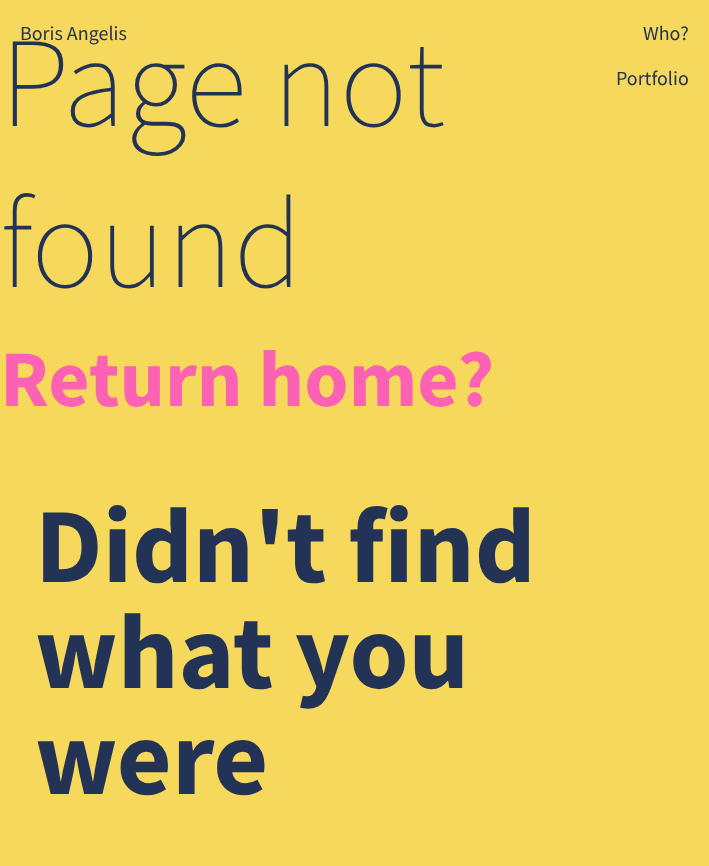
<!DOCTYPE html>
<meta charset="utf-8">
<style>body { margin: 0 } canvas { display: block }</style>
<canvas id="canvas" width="709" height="866"></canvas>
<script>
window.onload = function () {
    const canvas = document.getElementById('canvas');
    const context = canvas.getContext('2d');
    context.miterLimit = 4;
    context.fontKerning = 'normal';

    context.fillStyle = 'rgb(245, 216, 92)';
    context.fillRect(0, 0, 709, 866);
    context.font = '20px Source Sans Pro';
    context.fillStyle = 'rgb(34, 51, 85)';
    context.fillText('Boris Angelis', 20, 40);
    context.fillText('Who?', 643, 40);
    context.fillText('Portfolio', 616, 85);
    context.font = '200 128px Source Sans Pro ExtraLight';
    context.fillText('Page not', 0, 126);
    context.fillText('found', 0, 287);
    context.font = 'bold 80px Source Sans Pro';
    context.fillStyle = 'rgb(252, 98, 180)';
    context.fillText('Return home?', 0, 406);
    context.font = 'bold 106.5px Source Sans Pro';
    context.fillStyle = 'rgb(34, 51, 85)';
    context.fillText('Didn\'t find', 35, 582);
    context.fillText('what you', 35, 688);
    context.fillText('were', 35, 794);
};
</script>
